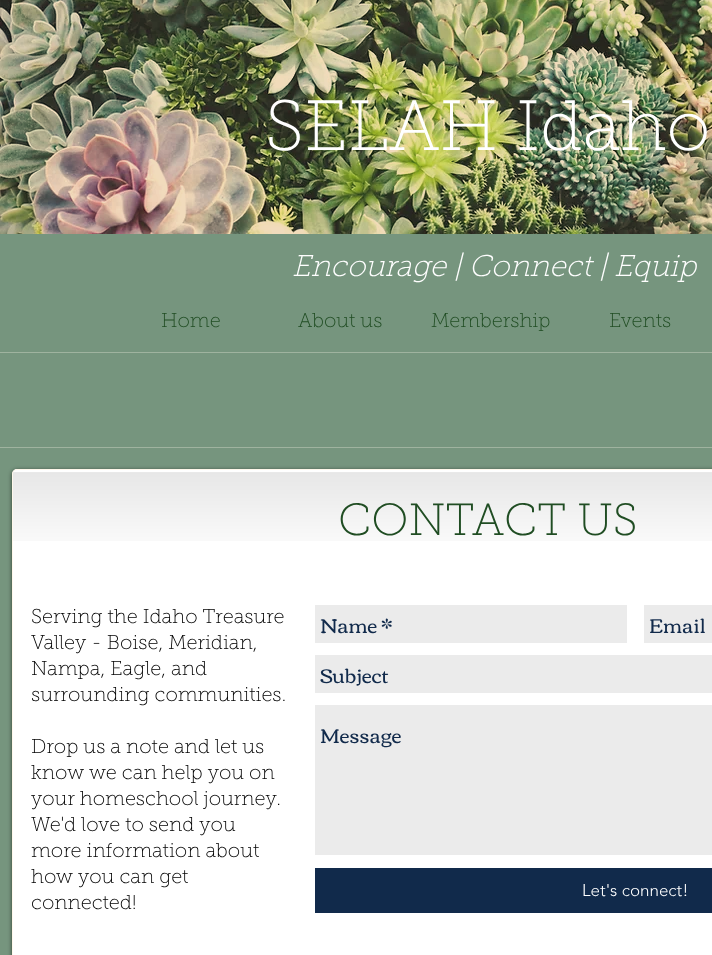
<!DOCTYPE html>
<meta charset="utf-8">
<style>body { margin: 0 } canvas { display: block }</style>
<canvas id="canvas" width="712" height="955"></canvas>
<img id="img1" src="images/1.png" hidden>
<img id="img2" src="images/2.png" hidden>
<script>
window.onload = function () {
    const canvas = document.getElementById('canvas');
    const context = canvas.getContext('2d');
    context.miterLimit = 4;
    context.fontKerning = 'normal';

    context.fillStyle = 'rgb(118, 149, 126)';
    context.fillRect(0, 0, 712, 955);
    context.drawImage(document.getElementById('img1'), 0, 0, 712, 234);
    context.fillStyle = 'rgb(159, 179, 159)';
    context.fillRect(0, 352, 712, 1);
    context.fillRect(0, 447, 712, 1);
    context.fillStyle = 'rgba(0, 0, 0, 0.6)';
    context.filter = 'blur(2px)';
    context.beginPath();
    context.roundRect(12, 470, 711, 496, 5);
    context.fill();
    context.filter = 'none';
    context.fillStyle = 'rgb(255, 255, 255)';
    context.beginPath();
    context.roundRect(12, 469, 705, 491, 5);
    context.fill();
    context.drawImage(document.getElementById('img2'), 12, 472, 700, 69);
    context.beginPath();
    context.roundRect(12.5, 469.5, 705, 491, 4.5);
    context.strokeStyle = 'rgb(255, 248, 235)';
    context.stroke();
    context.fillStyle = 'rgb(235, 235, 235)';
    context.fillRect(315, 605, 312, 38);
    context.fillRect(644, 605, 68, 38);
    context.fillRect(315, 655, 397, 38);
    context.fillRect(315, 705, 397, 150);
    context.fillStyle = 'rgb(17, 42, 75)';
    context.fillRect(315, 868, 397, 45);
    context.font = '100 71px "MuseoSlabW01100"';
    context.fillStyle = 'rgb(255, 255, 255)';
    context.fillText('SELAH Idaho', 265, 150);
    context.font = 'italic 100 30px "MuseoSlabW01100"';
    context.fillText('Encourage | Connect | Equip', 292, 276);
    context.font = '100 20px "MuseoSlabW01100"';
    context.fillStyle = 'rgb(32, 77, 35)';
    context.fillText('Home', 161, 327);
    context.fillText('About us', 298, 327);
    context.fillText('Membership', 431, 327);
    context.fillText('Events', 609, 327);
    context.font = '100 45px "MuseoSlabW01100"';
    context.fillText('CONTACT US', 338, 535);
    context.font = '100 20px "MuseoSlabW01100"';
    context.fillStyle = 'rgb(0, 0, 0)';
    context.fillText('Serving the Idaho Treasure', 31, 623);
    context.fillText('Valley - Boise, Meridian,', 31, 649);
    context.fillText('Nampa, Eagle, and', 31, 675);
    context.fillText('surrounding communities.', 31, 701);
    context.fillText('Drop us a note and let us', 31, 753);
    context.fillText('know we can help you on', 31, 779);
    context.fillText('your homeschool journey.', 31, 805);
    context.fillText('We\'d love to send you', 31, 831);
    context.fillText('more information about', 31, 857);
    context.fillText('how you can get', 31, 883);
    context.fillText('connected!', 31, 909);
    context.font = '20px Corben';
    context.fillStyle = 'rgb(17, 42, 75)';
    context.fillText('Name *', 320, 633);
    context.fillText('Email', 649, 633);
    context.fillText('Subject', 320, 683);
    context.fillText('Message', 320, 743);
    context.font = '300 17px "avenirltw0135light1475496"';
    context.fillStyle = 'rgb(255, 255, 255)';
    context.fillText('Let\'s connect!', 582, 896);
};
</script>
